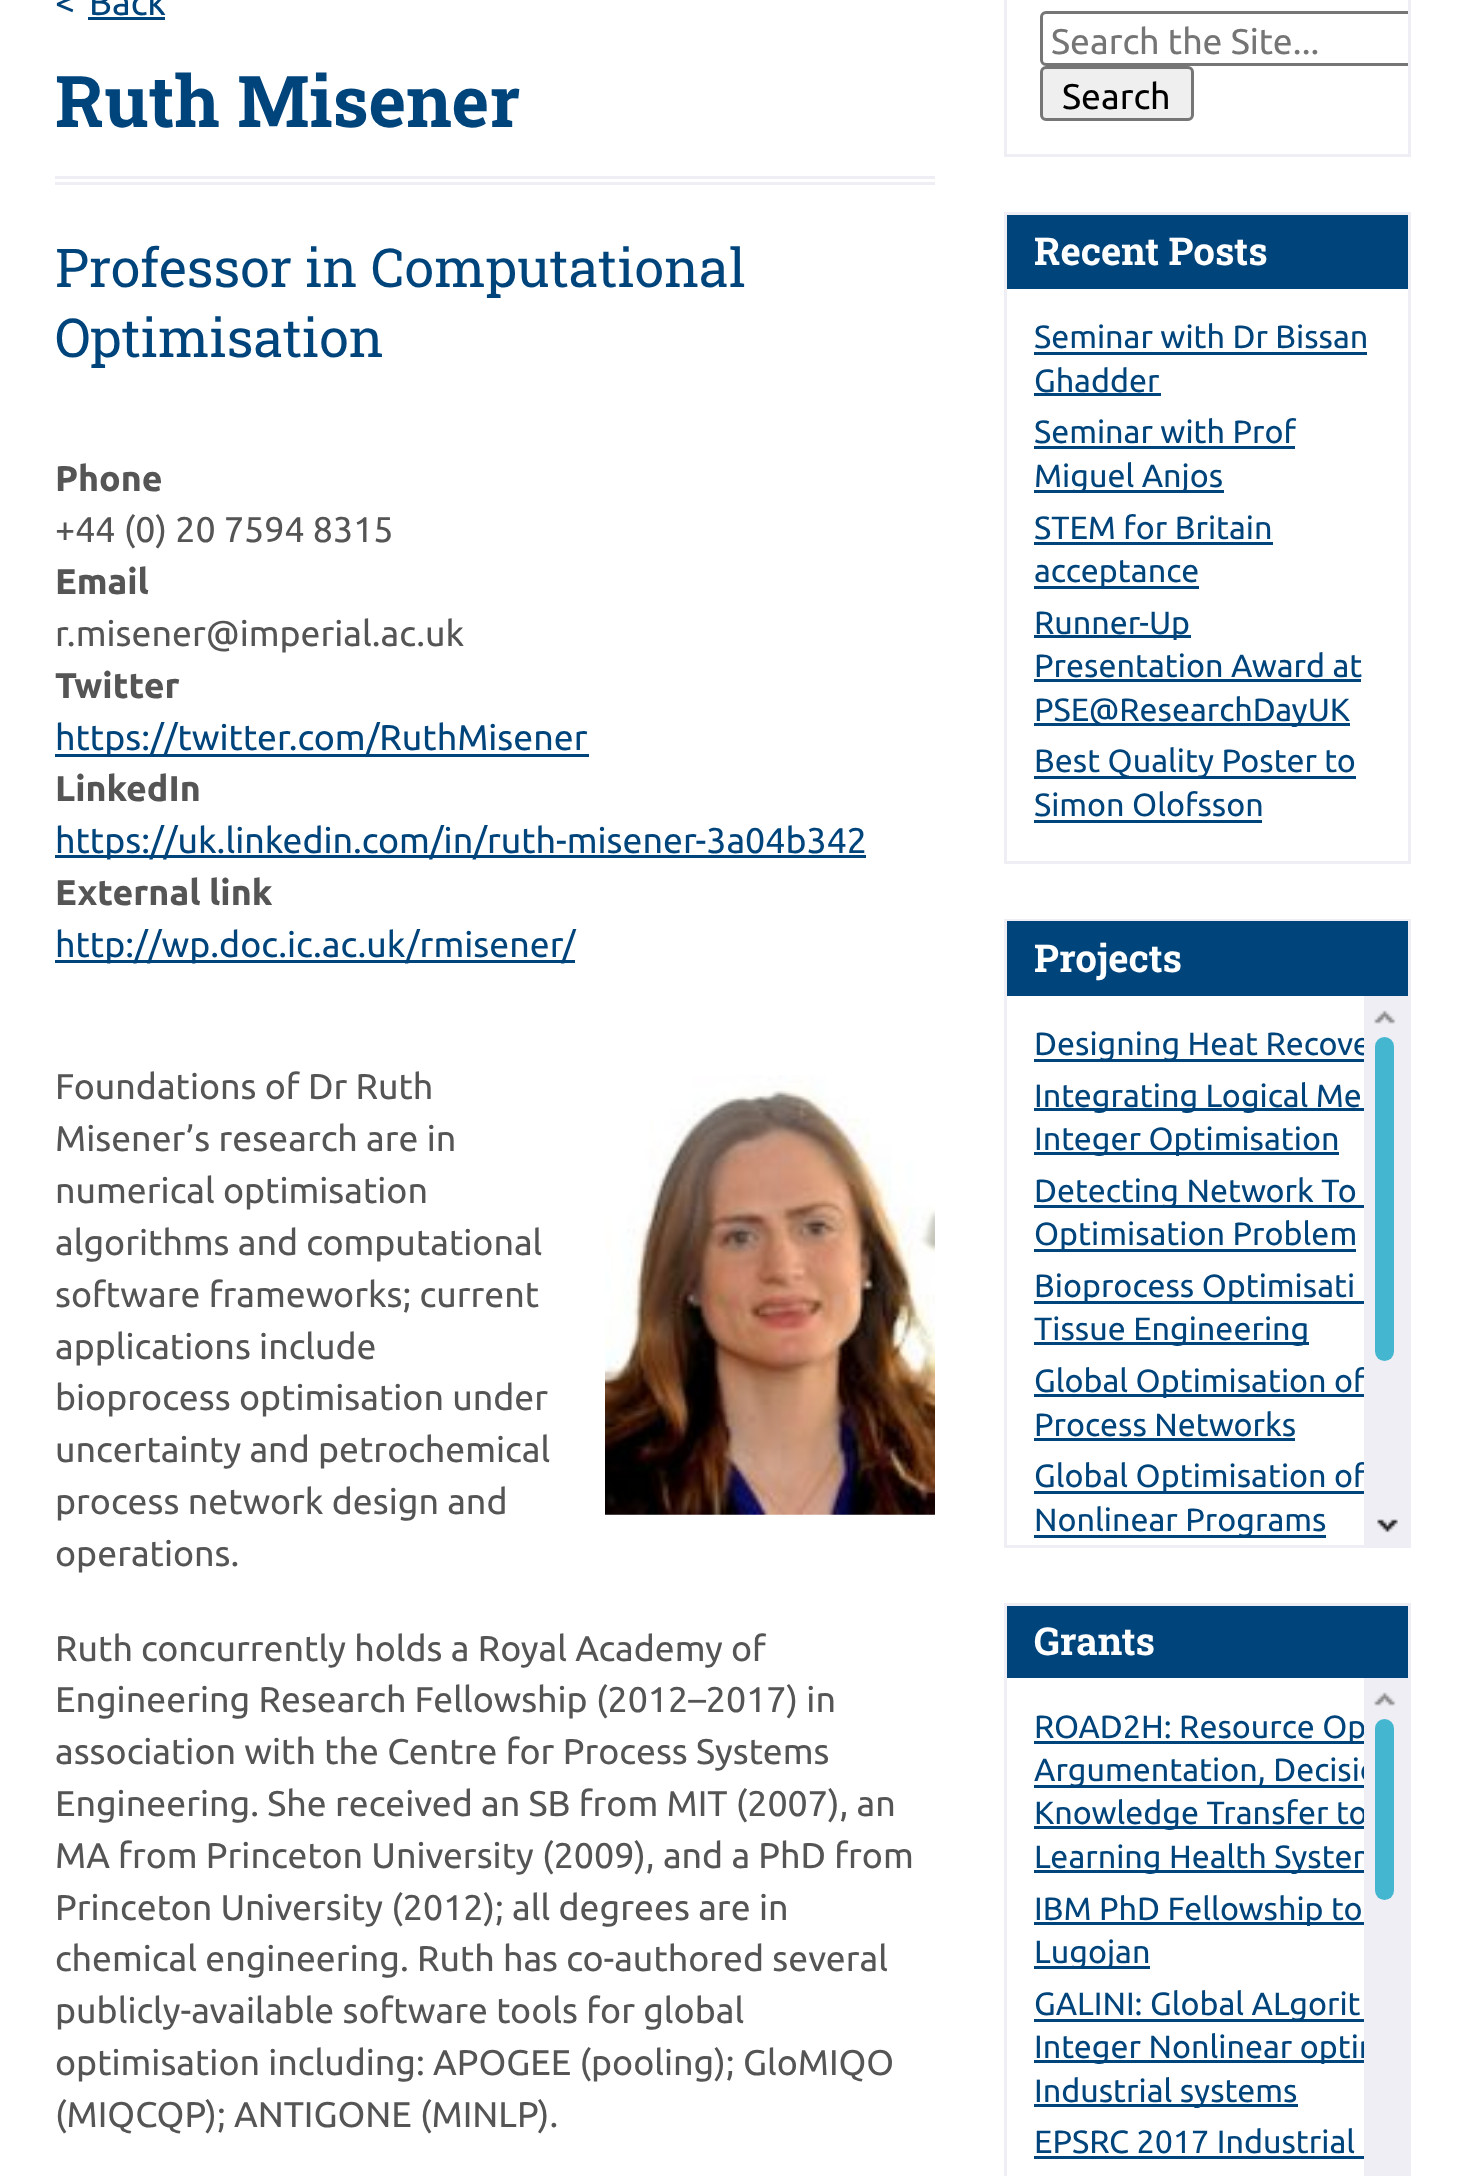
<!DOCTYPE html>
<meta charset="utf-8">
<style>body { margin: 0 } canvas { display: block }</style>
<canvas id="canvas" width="1464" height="2176"></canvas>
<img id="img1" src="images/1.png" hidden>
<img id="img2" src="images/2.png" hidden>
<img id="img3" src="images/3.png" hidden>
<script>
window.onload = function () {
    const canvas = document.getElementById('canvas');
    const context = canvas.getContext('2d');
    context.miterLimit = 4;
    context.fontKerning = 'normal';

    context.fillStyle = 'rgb(255, 255, 255)';
    context.fillRect(0, 0, 1464, 2176);
    context.fillStyle = 'rgb(0, 68, 124)';
    context.fillRect(88, 17, 77, 3);
    context.fillStyle = 'rgb(238, 238, 244)';
    context.fillRect(55, 176, 880, 3);
    context.fillRect(55, 182, 880, 3);
    context.fillStyle = 'rgb(0, 68, 124)';
    context.fillRect(55, 754, 534, 3);
    context.fillRect(55, 855, 811, 3);
    context.fillRect(55, 960, 520, 3);
    context.drawImage(document.getElementById('img1'), 605, 1075, 330, 440);
    context.strokeStyle = 'rgb(238, 238, 244)';
    context.lineWidth = 3;
    context.strokeRect(1005.5, -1.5, 404, 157);
    context.save();
    context.beginPath();
    context.rect(1007, 0, 401, 154);
    context.clip();
    context.beginPath();
    context.roundRect(1041.5, 12.5, 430, 52, 4.5);
    context.strokeStyle = 'rgb(118, 118, 118)';
    context.stroke();
    context.restore();
    context.fillStyle = 'rgb(239, 239, 239)';
    context.beginPath();
    context.roundRect(1041.5, 67.5, 151, 52, 4.5);
    context.fill();
    context.strokeStyle = 'rgb(118, 118, 118)';
    context.stroke();
    context.strokeStyle = 'rgb(238, 238, 244)';
    context.strokeRect(1005.5, 213.5, 404, 649);
    context.fillStyle = 'rgb(0, 68, 124)';
    context.fillRect(1007, 215, 401, 74);
    context.fillRect(1034, 352, 333, 3);
    context.fillRect(1034, 393, 127, 3);
    context.fillRect(1034, 446, 261, 3);
    context.fillRect(1034, 490, 190, 3);
    context.fillRect(1034, 542, 239, 3);
    context.fillRect(1034, 586, 165, 3);
    context.fillRect(1034, 635, 157, 3);
    context.fillRect(1034, 679, 327, 3);
    context.fillRect(1034, 723, 316, 3);
    context.fillRect(1034, 776, 322, 3);
    context.fillRect(1034, 820, 228, 3);
    context.strokeRect(1005.5, 920.5, 404, 626);
    context.fillRect(1007, 921, 401, 75);
    context.fillRect(1034, 1059, 330, 3);
    context.fillRect(1034, 1108, 330, 3);
    context.fillRect(1034, 1152, 305, 3);
    context.fillRect(1034, 1205, 330, 3);
    context.fillRect(1034, 1249, 322, 3);
    context.fillRect(1034, 1301, 330, 3);
    context.fillRect(1034, 1342, 275, 3);
    context.fillRect(1034, 1394, 330, 3);
    context.fillRect(1034, 1438, 261, 3);
    context.fillRect(1034, 1491, 330, 3);
    context.fillRect(1034, 1535, 292, 3);
    context.strokeRect(1005.5, 1604.5, 404, 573);
    context.fillRect(1007, 1606, 401, 72);
    context.fillRect(1034, 1741, 330, 3);
    context.fillRect(1034, 1785, 330, 3);
    context.fillRect(1034, 1826, 330, 3);
    context.fillRect(1034, 1870, 330, 3);
    context.fillRect(1034, 1922, 330, 3);
    context.fillRect(1034, 1966, 116, 3);
    context.fillRect(1034, 2019, 330, 3);
    context.fillRect(1034, 2060, 330, 3);
    context.fillRect(1034, 2104, 264, 3);
    context.fillRect(1034, 2156, 330, 3);
    context.font = '35.75px Ubuntu';
    context.fillText('<', 55, 15);
    context.fillText('Back', 89, 15);
    context.font = 'bold 71.5px Roboto Slab';
    context.fillText('Ruth Misener', 55, 127);
    context.font = '53.6px Roboto Slab';
    context.fillText('Professor in Computational', 55, 287);
    context.fillText('Optimisation', 55, 357);
    context.font = 'bold 35.75px Ubuntu';
    context.fillStyle = 'rgb(85, 85, 85)';
    context.fillText('Phone', 55, 491);
    context.font = '35.75px Ubuntu';
    context.fillText('+44 (0) 20 7594 8315', 55, 542);
    context.font = 'bold 35.75px Ubuntu';
    context.fillText('Email', 55, 594);
    context.font = '35.75px Ubuntu';
    context.fillText('r.misener@imperial.ac.uk', 55, 646);
    context.font = 'bold 35.75px Ubuntu';
    context.fillText('Twitter', 55, 698);
    context.font = '35.75px Ubuntu';
    context.fillStyle = 'rgb(0, 68, 124)';
    context.fillText('https://twitter.com/RuthMisener', 55, 750);
    context.font = 'bold 35.75px Ubuntu';
    context.fillStyle = 'rgb(85, 85, 85)';
    context.fillText('LinkedIn', 55, 801);
    context.font = '35.75px Ubuntu';
    context.fillStyle = 'rgb(0, 68, 124)';
    context.fillText('https://uk.linkedin.com/in/ruth-misener-3a04b342', 55, 853);
    context.font = 'bold 35.75px Ubuntu';
    context.fillStyle = 'rgb(85, 85, 85)';
    context.fillText('External link', 55, 905);
    context.font = '35.75px Ubuntu';
    context.fillStyle = 'rgb(0, 68, 124)';
    context.fillText('http://wp.doc.ic.ac.uk/rmisener/', 55, 957);
    context.fillStyle = 'rgb(85, 85, 85)';
    context.fillText('Foundations of Dr Ruth', 55, 1099);
    context.fillText('Misener’s research are in', 55, 1151);
    context.fillText('numerical optimisation', 55, 1203);
    context.fillText('algorithms and computational', 55, 1255);
    context.fillText('software frameworks; current', 55, 1307);
    context.fillText('applications include', 55, 1359);
    context.fillText('bioprocess optimisation under', 55, 1410);
    context.fillText('uncertainty and petrochemical', 55, 1462);
    context.fillText('process network design and', 55, 1514);
    context.fillText('operations.', 55, 1566);
    context.fillText('Ruth concurrently holds a Royal Academy of', 55, 1661);
    context.fillText('Engineering Research Fellowship (2012–2017) in', 55, 1712);
    context.fillText('association with the Centre for Process Systems', 55, 1764);
    context.fillText('Engineering. She received an SB from MIT (2007), an', 55, 1816);
    context.fillText('MA from Princeton University (2009), and a PhD from', 55, 1868);
    context.fillText('Princeton University (2012); all degrees are in', 55, 1920);
    context.fillText('chemical engineering. Ruth has co-authored several', 55, 1971);
    context.fillText('publicly-available software tools for global', 55, 2023);
    context.fillText('optimisation including: APOGEE (pooling); GloMIQO', 55, 2075);
    context.fillText('(MIQCQP); ANTIGONE (MINLP).', 55, 2127);
    context.fillStyle = 'rgb(117, 117, 117)';
    context.fillText('Search the Site...', 1051, 54);
    context.fillStyle = 'rgb(0, 0, 0)';
    context.fillText('Search', 1062, 109);
    context.font = 'bold 38.5px Roboto Slab';
    context.fillStyle = 'rgb(255, 255, 255)';
    context.fillText('Recent Posts', 1034, 265);
    context.font = '32.25px Ubuntu';
    context.fillStyle = 'rgb(0, 68, 124)';
    context.fillText('Seminar with Dr Bissan', 1034, 348);
    context.fillText('Ghadder', 1034, 392);
    context.fillText('Seminar with Prof', 1034, 443);
    context.fillText('Miguel Anjos', 1034, 487);
    context.fillText('STEM for Britain', 1034, 539);
    context.fillText('acceptance', 1034, 582);
    context.fillText('Runner-Up', 1034, 634);
    context.fillText('Presentation Award at', 1034, 677);
    context.fillText('PSE@ResearchDayUK', 1034, 721);
    context.fillText('Best Quality Poster to', 1034, 772);
    context.fillText('Simon Olofsson', 1034, 816);
    context.font = 'bold 38.5px Roboto Slab';
    context.fillStyle = 'rgb(255, 255, 255)';
    context.fillText('Projects', 1034, 972);
    context.font = '32.25px Ubuntu';
    context.fillStyle = 'rgb(0, 68, 124)';
    context.fillText('Designing Heat Recove', 1034, 1055);
    context.fillText('Integrating Logical Me', 1034, 1107);
    context.fillText('Integer Optimisation', 1034, 1150);
    context.fillText('Detecting Network To', 1034, 1202);
    context.fillText('Optimisation Problem', 1034, 1245);
    context.fillText('Bioprocess Optimisati', 1034, 1297);
    context.fillText('Tissue Engineering', 1034, 1340);
    context.fillText('Global Optimisation of', 1034, 1392);
    context.fillText('Process Networks', 1034, 1436);
    context.fillText('Global Optimisation of', 1034, 1487);
    context.fillText('Nonlinear Programs', 1034, 1531);
    context.fillStyle = 'rgb(238, 238, 244)';
    context.fillRect(1364, 996, 44, 549);
    context.drawImage(document.getElementById('img2'), 1374, 1010, 22, 14);
    context.fillStyle = 'rgb(68, 182, 208)';
    context.beginPath();
    context.roundRect(1375, 1037, 19, 324, 9.5);
    context.fill();
    context.drawImage(document.getElementById('img3'), 1377, 1519, 21, 14);
    context.font = 'bold 38.5px Roboto Slab';
    context.fillStyle = 'rgb(255, 255, 255)';
    context.fillText('Grants', 1034, 1655);
    context.font = '32.25px Ubuntu';
    context.fillStyle = 'rgb(0, 68, 124)';
    context.fillText('ROAD2H: Resource Op', 1034, 1738);
    context.fillText('Argumentation, Decisio', 1034, 1781);
    context.fillText('Knowledge Transfer to', 1034, 1824);
    context.fillText('Learning Health System', 1034, 1868);
    context.fillText('IBM PhD Fellowship to', 1034, 1920);
    context.fillText('Lugojan', 1034, 1963);
    context.fillText('GALINI: Global ALgorit', 1034, 2015);
    context.fillText('Integer Nonlinear optim', 1034, 2058);
    context.fillText('Industrial systems', 1034, 2102);
    context.fillText('EPSRC 2017 Industrial', 1034, 2153);
    context.fillStyle = 'rgb(238, 238, 244)';
    context.fillRect(1364, 1678, 44, 498);
    context.drawImage(document.getElementById('img2'), 1374, 1692, 22, 14);
    context.fillStyle = 'rgb(68, 182, 208)';
    context.beginPath();
    context.roundRect(1375, 1719, 19, 181, 9.5);
    context.fill();
};
</script>
